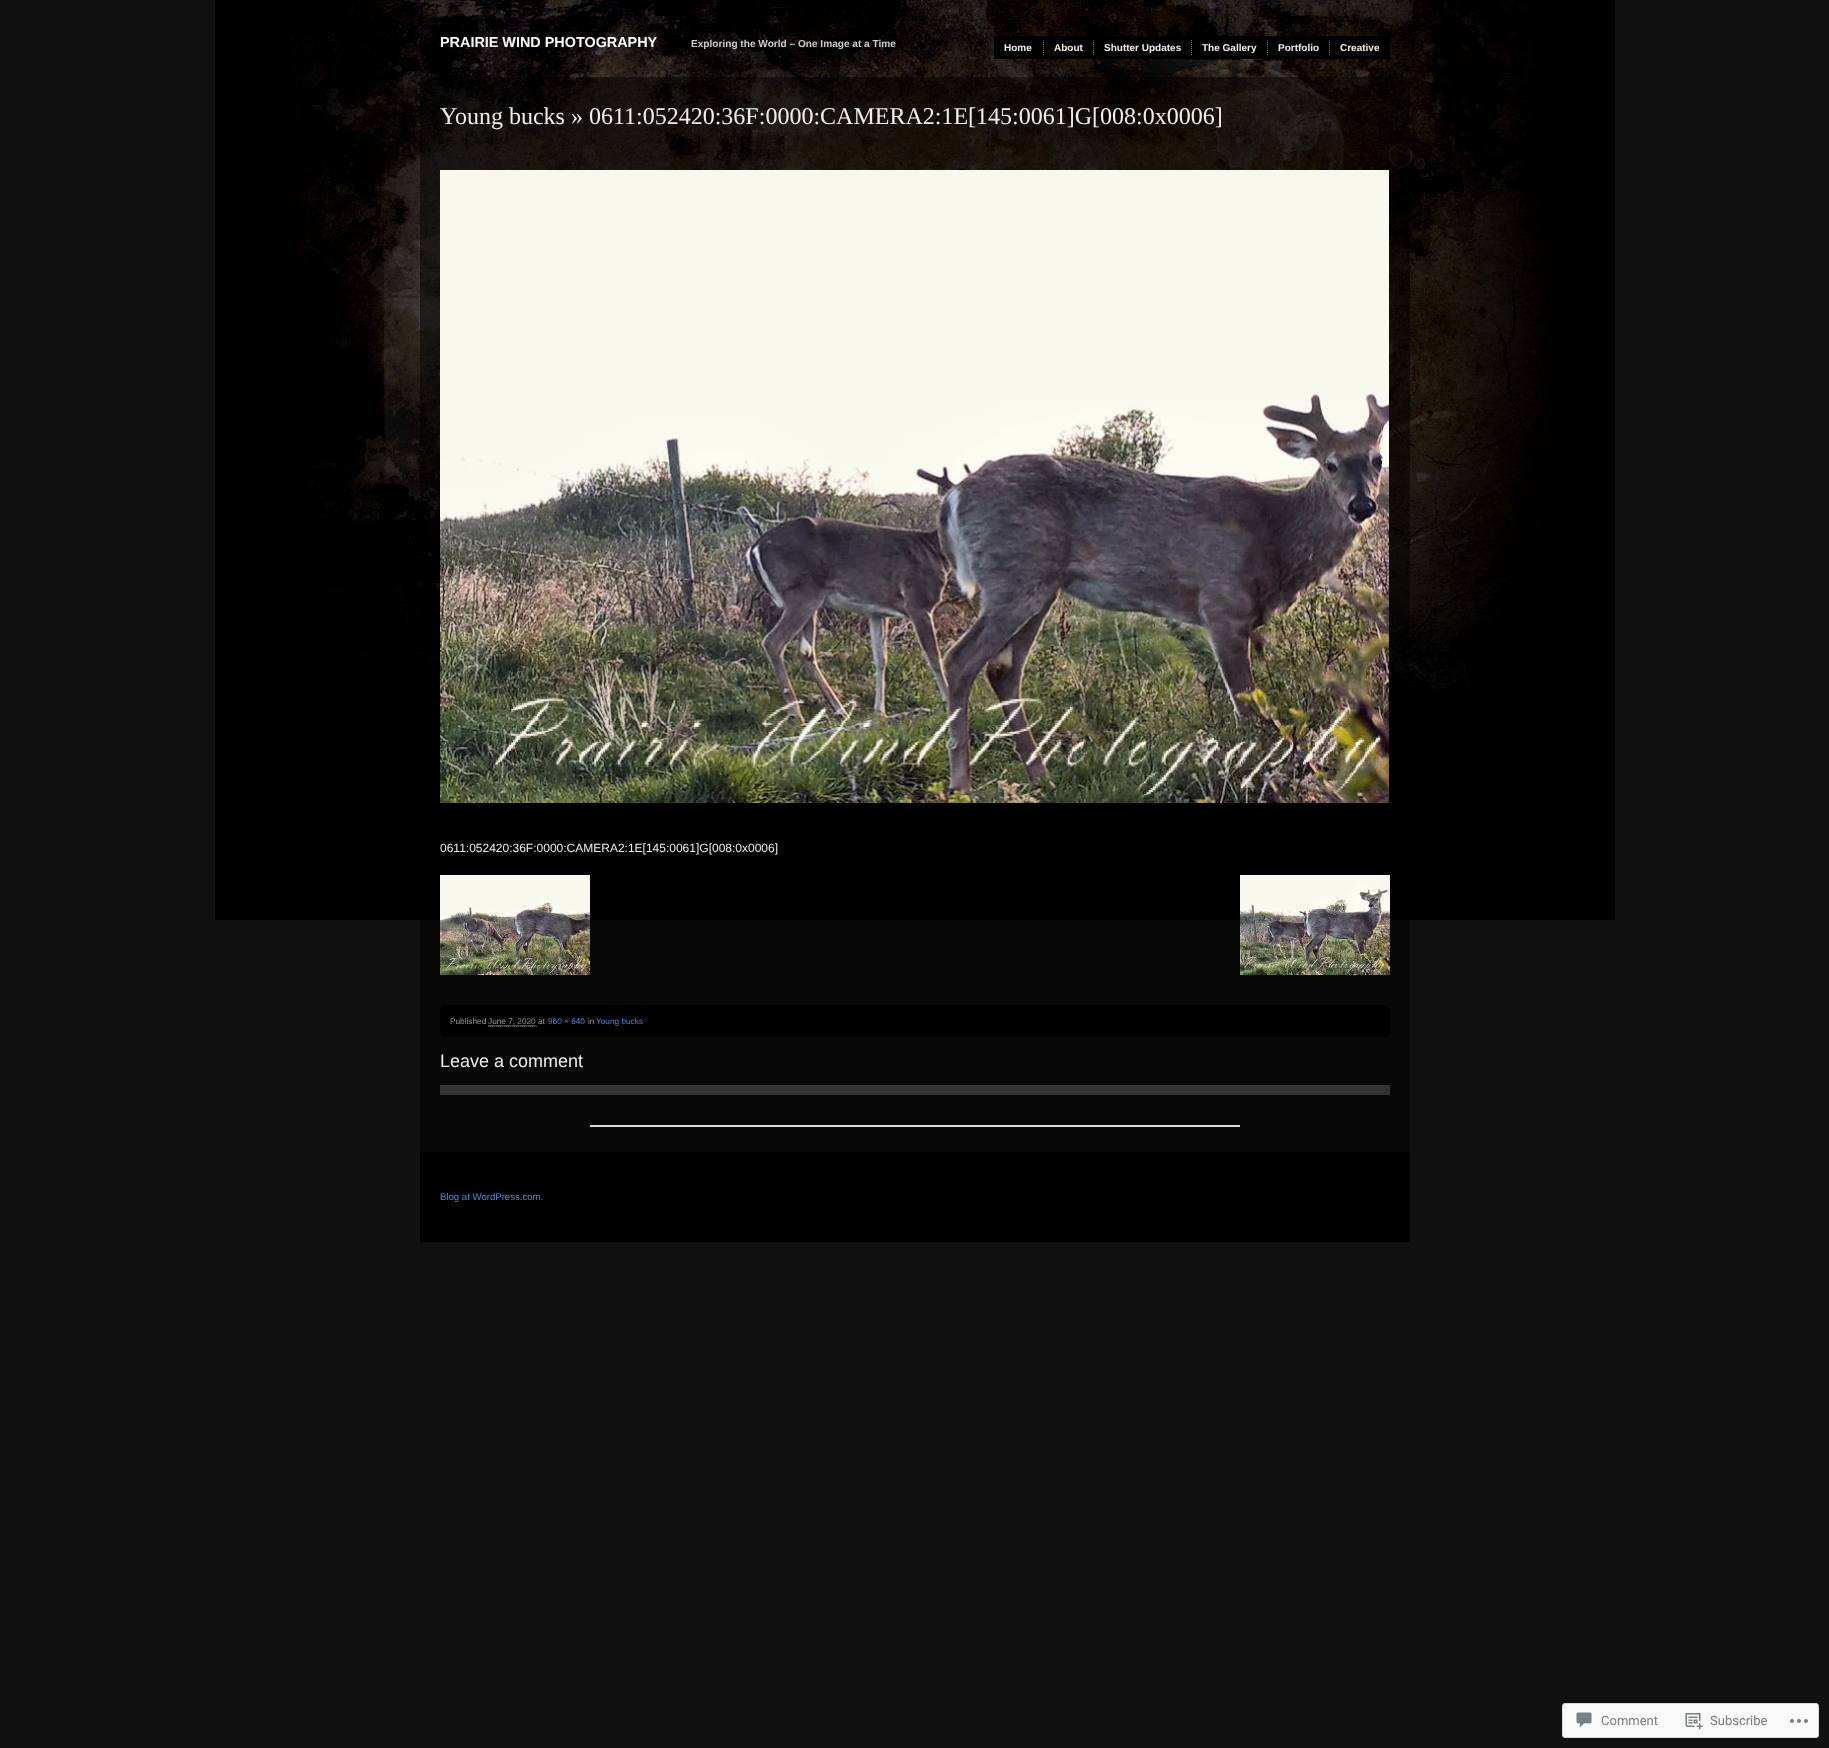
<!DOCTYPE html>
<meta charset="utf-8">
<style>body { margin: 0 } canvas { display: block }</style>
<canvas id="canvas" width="1829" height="1748"></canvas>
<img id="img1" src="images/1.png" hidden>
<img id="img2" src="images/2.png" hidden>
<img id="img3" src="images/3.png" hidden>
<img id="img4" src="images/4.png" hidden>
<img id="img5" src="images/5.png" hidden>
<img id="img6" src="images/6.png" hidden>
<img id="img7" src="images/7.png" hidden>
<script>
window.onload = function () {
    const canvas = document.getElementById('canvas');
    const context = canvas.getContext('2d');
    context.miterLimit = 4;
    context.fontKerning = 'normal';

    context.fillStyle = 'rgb(17, 17, 17)';
    context.fillRect(0, 0, 1829, 1748);
    context.drawImage(document.getElementById('img1'), 215, 0, 1400, 920);
    context.fillStyle = 'rgb(0, 0, 0)';
    context.fillRect(994, 36, 396, 23);
    context.beginPath();
    context.moveTo(1043.5, 40);
    context.lineTo(1043.5, 55);
    context.strokeStyle = 'rgb(102, 102, 102)';
    context.setLineDash([1, 1]);
    context.stroke();
    context.beginPath();
    context.moveTo(1093.5, 40);
    context.lineTo(1093.5, 55);
    context.stroke();
    context.beginPath();
    context.moveTo(1191.5, 40);
    context.lineTo(1191.5, 55);
    context.stroke();
    context.beginPath();
    context.moveTo(1267.5, 40);
    context.lineTo(1267.5, 55);
    context.stroke();
    context.beginPath();
    context.moveTo(1329.5, 40);
    context.lineTo(1329.5, 55);
    context.stroke();
    context.fillStyle = 'rgba(0, 0, 0, 0.5)';
    context.fillRect(420, 77, 990, 1075);
    context.drawImage(document.getElementById('img2'), 440, 170, 949, 633);
    context.drawImage(document.getElementById('img3'), 440, 875, 150, 100);
    context.drawImage(document.getElementById('img4'), 1240, 875, 150, 100);
    context.fillStyle = 'rgb(0, 0, 0)';
    context.beginPath();
    context.roundRect(440, 1005, 950, 32, 5);
    context.fill();
    context.beginPath();
    context.moveTo(488, 1026.5);
    context.lineTo(537, 1026.5);
    context.stroke();
    context.beginPath();
    context.moveTo(488.5, 1025.5);
    context.lineTo(536.5, 1025.5);
    context.strokeStyle = 'rgb(153, 153, 153)';
    context.stroke();
    context.fillStyle = 'rgb(51, 51, 51)';
    context.fillRect(440, 1085, 950, 10);
    context.fillStyle = 'rgb(220, 220, 222)';
    context.fillRect(590, 1125, 650, 2);
    context.fillStyle = 'rgb(0, 0, 0)';
    context.fillRect(420, 1152, 990, 90);
    context.fillStyle = 'rgb(250, 250, 250)';
    context.beginPath();
    context.roundRect(1562.5, 1703.5, 256, 34, 2.5);
    context.fill();
    context.strokeStyle = 'rgb(216, 216, 218)';
    context.setLineDash([]);
    context.stroke();
    context.drawImage(document.getElementById('img5'), 1576, 1712, 16, 16);
    context.drawImage(document.getElementById('img6'), 1685, 1713, 18, 17);
    context.drawImage(document.getElementById('img7'), 1790, 1719, 18, 4);
    context.font = 'bold 14.4px Liberation Sans';
    context.fillStyle = 'rgb(255, 255, 255)';
    context.fillText('PRAIRIE WIND PHOTOGRAPHY', 440, 47);
    context.font = 'bold 10.1px Liberation Sans';
    context.fillStyle = 'rgb(204, 204, 204)';
    context.fillText('Exploring the World – One Image at a Time', 691, 47);
    context.font = 'bold 10px Liberation Sans';
    context.fillStyle = 'rgb(238, 238, 238)';
    context.fillText('Home', 1004, 51);
    context.fillText('About', 1054, 51);
    context.fillText('Shutter Updates', 1104, 51);
    context.fillText('The Gallery', 1202, 51);
    context.fillText('Portfolio', 1278, 51);
    context.fillText('Creative', 1340, 51);
    context.font = '24px Liberation Serif';
    context.fillText('Young bucks » 0611:052420:36F:0000:CAMERA2:1E[145:0061]G[008:0x0006]', 440, 124);
    context.font = '12px Liberation Sans';
    context.fillText('0611:052420:36F:0000:CAMERA2:1E[145:0061]G[008:0x0006]', 440, 852);
    context.font = '8.25px Liberation Sans';
    context.fillStyle = 'rgb(153, 153, 153)';
    context.fillText('Published', 450, 1024);
    context.fillText('June 7, 2020 at', 488, 1024);
    context.fillStyle = 'rgb(66, 140, 231)';
    context.fillText('960 × 640', 548, 1024);
    context.fillStyle = 'rgb(153, 153, 153)';
    context.fillText('in', 588, 1024);
    context.fillStyle = 'rgb(66, 140, 231)';
    context.fillText('Young bucks', 596, 1024);
    context.font = '18px Liberation Sans';
    context.fillStyle = 'rgb(238, 238, 238)';
    context.fillText('Leave a comment', 440, 1067);
    context.font = '9.6px Liberation Sans';
    context.fillStyle = 'rgb(66, 140, 231)';
    context.fillText('Blog at WordPress.com.', 440, 1200);
    context.font = '13px Roboto';
    context.fillStyle = 'rgb(118, 122, 128)';
    context.fillText('Comment', 1601, 1725);
    context.fillText('Subscribe', 1710, 1725);
};
</script>
